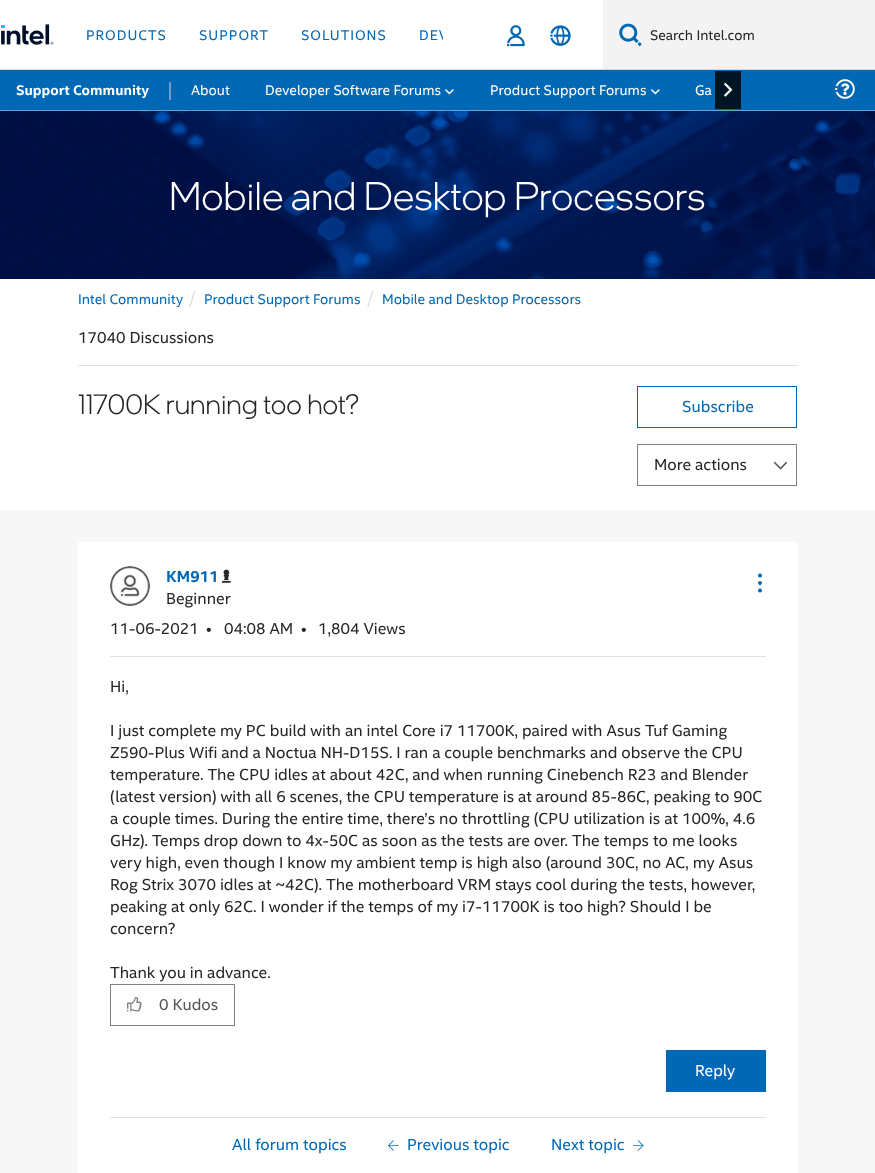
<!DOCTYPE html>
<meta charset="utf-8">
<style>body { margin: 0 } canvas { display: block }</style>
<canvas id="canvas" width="875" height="1173"></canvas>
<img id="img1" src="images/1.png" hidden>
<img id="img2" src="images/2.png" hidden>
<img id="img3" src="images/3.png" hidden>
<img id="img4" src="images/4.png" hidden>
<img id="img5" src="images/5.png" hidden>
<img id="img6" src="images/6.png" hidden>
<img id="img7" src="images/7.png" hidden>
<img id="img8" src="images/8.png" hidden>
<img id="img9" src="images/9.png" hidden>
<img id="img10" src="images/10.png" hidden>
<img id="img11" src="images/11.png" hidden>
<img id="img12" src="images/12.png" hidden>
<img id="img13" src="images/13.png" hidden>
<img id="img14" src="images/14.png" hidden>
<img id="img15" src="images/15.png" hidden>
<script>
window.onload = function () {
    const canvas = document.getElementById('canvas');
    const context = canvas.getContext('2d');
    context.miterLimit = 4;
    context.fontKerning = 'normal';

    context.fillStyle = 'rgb(247, 247, 247)';
    context.fillRect(0, 0, 875, 1173);
    context.fillStyle = 'rgb(255, 255, 255)';
    context.fillRect(0, 0, 603, 69);
    context.fillStyle = 'rgb(215, 215, 215)';
    context.fillRect(0, 69, 875, 1);
    context.drawImage(document.getElementById('img1'), 1, 24, 53, 21);
    context.drawImage(document.getElementById('img2'), 507, 25, 18, 22);
    context.drawImage(document.getElementById('img3'), 550, 25, 21, 21);
    context.fillStyle = 'rgb(243, 243, 243)';
    context.fillRect(603, 0, 272, 69);
    context.drawImage(document.getElementById('img4'), 619, 23, 23, 24);
    context.fillStyle = 'rgb(0, 104, 181)';
    context.fillRect(0, 70, 875, 40);
    context.fillStyle = 'rgb(108, 160, 198)';
    context.fillRect(169, 82, 2, 18);
    context.drawImage(document.getElementById('img5'), 445, 89, 9, 6);
    context.drawImage(document.getElementById('img5'), 651, 89, 9, 6);
    context.fillStyle = 'rgba(0, 0, 0, 0.8)';
    context.fillRect(715, 71, 26, 38);
    context.drawImage(document.getElementById('img6'), 724, 82, 9, 15);
    context.drawImage(document.getElementById('img7'), 835, 79, 20, 20);
    context.drawImage(document.getElementById('img8'), 0, 111, 875, 168);
    context.fillStyle = 'rgb(108, 160, 198)';
    context.fillRect(0, 110, 875, 1);
    context.fillStyle = 'rgb(255, 255, 255)';
    context.fillRect(0, 279, 875, 231);
    context.fillStyle = 'rgb(224, 224, 224)';
    context.fillRect(78, 365, 720, 1);
    context.strokeStyle = 'rgb(0, 104, 181)';
    context.strokeRect(637.5, 386.5, 159, 41);
    context.drawImage(document.getElementById('img9'), 773, 461, 15, 9);
    context.strokeStyle = 'rgb(128, 128, 128)';
    context.strokeRect(637.5, 444.5, 159, 41);
    context.fillStyle = 'rgb(255, 255, 255)';
    context.fillRect(78, 542, 720, 631);
    context.fillStyle = 'rgb(224, 224, 224)';
    context.fillRect(110, 656, 656, 1);
    context.drawImage(document.getElementById('img10'), 110, 566, 40, 40);
    context.drawImage(document.getElementById('img11'), 222, 569, 9, 14);
    context.drawImage(document.getElementById('img12'), 758, 573, 4, 20);
    context.strokeRect(110.5, 984.5, 124, 41);
    context.drawImage(document.getElementById('img13'), 127, 997, 15, 15);
    context.fillStyle = 'rgb(0, 104, 181)';
    context.fillRect(666, 1050, 100, 42);
    context.fillStyle = 'rgb(224, 224, 224)';
    context.fillRect(110, 1117, 656, 1);
    context.drawImage(document.getElementById('img14'), 388, 1140, 11, 11);
    context.drawImage(document.getElementById('img15'), 633, 1140, 11, 11);
    context.letterSpacing = '1px';
    context.font = '14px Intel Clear';
    context.fillStyle = 'rgb(0, 104, 181)';
    context.fillText('PRODUCTS', 86, 40);
    context.fillText('SUPPORT', 199, 40);
    context.fillText('SOLUTIONS', 301, 40);
    context.save();
    context.beginPath();
    context.rect(70, 0, 373, 70);
    context.clip();
    context.fillText('DEV', 419, 40);
    context.restore();
    context.letterSpacing = '0px';
    context.fillStyle = 'rgb(38, 38, 38)';
    context.fillText('Search Intel.com', 650, 40);
    context.font = 'bold 14px Intel Clear';
    context.fillStyle = 'rgb(255, 255, 255)';
    context.fillText('Support Community', 16, 95);
    context.font = '14px Intel Clear';
    context.fillText('About', 191, 95);
    context.fillText('Developer Software Forums', 265, 95);
    context.fillText('Product Support Forums', 490, 95);
    context.fillText('Ga', 695, 95);
    context.font = '300 40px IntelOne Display';
    context.fillText('Mobile and Desktop Processors', 169, 210);
    context.font = '14px Intel Clear';
    context.fillStyle = 'rgb(0, 104, 181)';
    context.fillText('Intel Community', 78, 304);
    context.font = '300 18px Intel Clear';
    context.fillStyle = 'rgb(215, 215, 215)';
    context.fillText('/', 189, 304);
    context.font = '14px Intel Clear';
    context.fillStyle = 'rgb(0, 104, 181)';
    context.fillText('Product Support Forums', 204, 304);
    context.font = '300 18px Intel Clear';
    context.fillStyle = 'rgb(215, 215, 215)';
    context.fillText('/', 367, 304);
    context.font = '14px Intel Clear';
    context.fillStyle = 'rgb(0, 104, 181)';
    context.fillText('Mobile and Desktop Processors', 382, 304);
    context.font = '16px Intel Clear';
    context.fillStyle = 'rgb(38, 38, 38)';
    context.fillText('17040 Discussions', 78, 343);
    context.font = '300 28px IntelOne Display';
    context.fillText('11700K running too hot?', 78, 414);
    context.font = '16px Intel Clear';
    context.fillStyle = 'rgb(0, 104, 181)';
    context.fillText('Subscribe', 682, 412);
    context.fillStyle = 'rgb(38, 38, 38)';
    context.fillText('More actions', 654, 470);
    context.font = 'bold 16px Intel Clear';
    context.fillStyle = 'rgb(0, 104, 181)';
    context.fillText('KM911', 166, 582);
    context.font = '16px Intel Clear';
    context.fillStyle = 'rgb(38, 38, 38)';
    context.fillText('Beginner', 166, 604);
    context.fillText('11-06-2021', 110, 634);
    context.fillText('•', 206, 634);
    context.fillText('04:08 AM', 224, 634);
    context.fillText('•', 301, 634);
    context.fillText('1,804 Views', 318, 634);
    context.fillText('Hi,', 110, 692);
    context.fillText('I just complete my PC build with an intel Core i7 11700K, paired with Asus Tuf Gaming', 110, 736);
    context.fillText('Z590-Plus Wifi and a Noctua NH-D15S. I ran a couple benchmarks and observe the CPU', 110, 758);
    context.fillText('temperature. The CPU idles at about 42C, and when running Cinebench R23 and Blender', 110, 780);
    context.fillText('(latest version) with all 6 scenes, the CPU temperature is at around 85-86C, peaking to 90C', 110, 802);
    context.fillText('a couple times. During the entire time, there’s no throttling (CPU utilization is at 100%, 4.6', 110, 824);
    context.fillText('GHz). Temps drop down to 4x-50C as soon as the tests are over. The temps to me looks', 110, 846);
    context.fillText('very high, even though I know my ambient temp is high also (around 30C, no AC, my Asus', 110, 868);
    context.fillText('Rog Strix 3070 idles at ~42C). The motherboard VRM stays cool during the tests, however,', 110, 890);
    context.fillText('peaking at only 62C. I wonder if the temps of my i7-11700K is too high? Should I be', 110, 912);
    context.fillText('concern?', 110, 934);
    context.fillText('Thank you in advance.', 110, 978);
    context.fillStyle = 'rgb(85, 85, 85)';
    context.fillText('0 Kudos', 159, 1010);
    context.fillStyle = 'rgb(255, 255, 255)';
    context.fillText('Reply', 695, 1076);
    context.fillStyle = 'rgb(0, 104, 181)';
    context.fillText('All forum topics', 232, 1150);
    context.fillText('Previous topic', 407, 1150);
    context.fillText('Next topic', 551, 1150);
};
</script>
